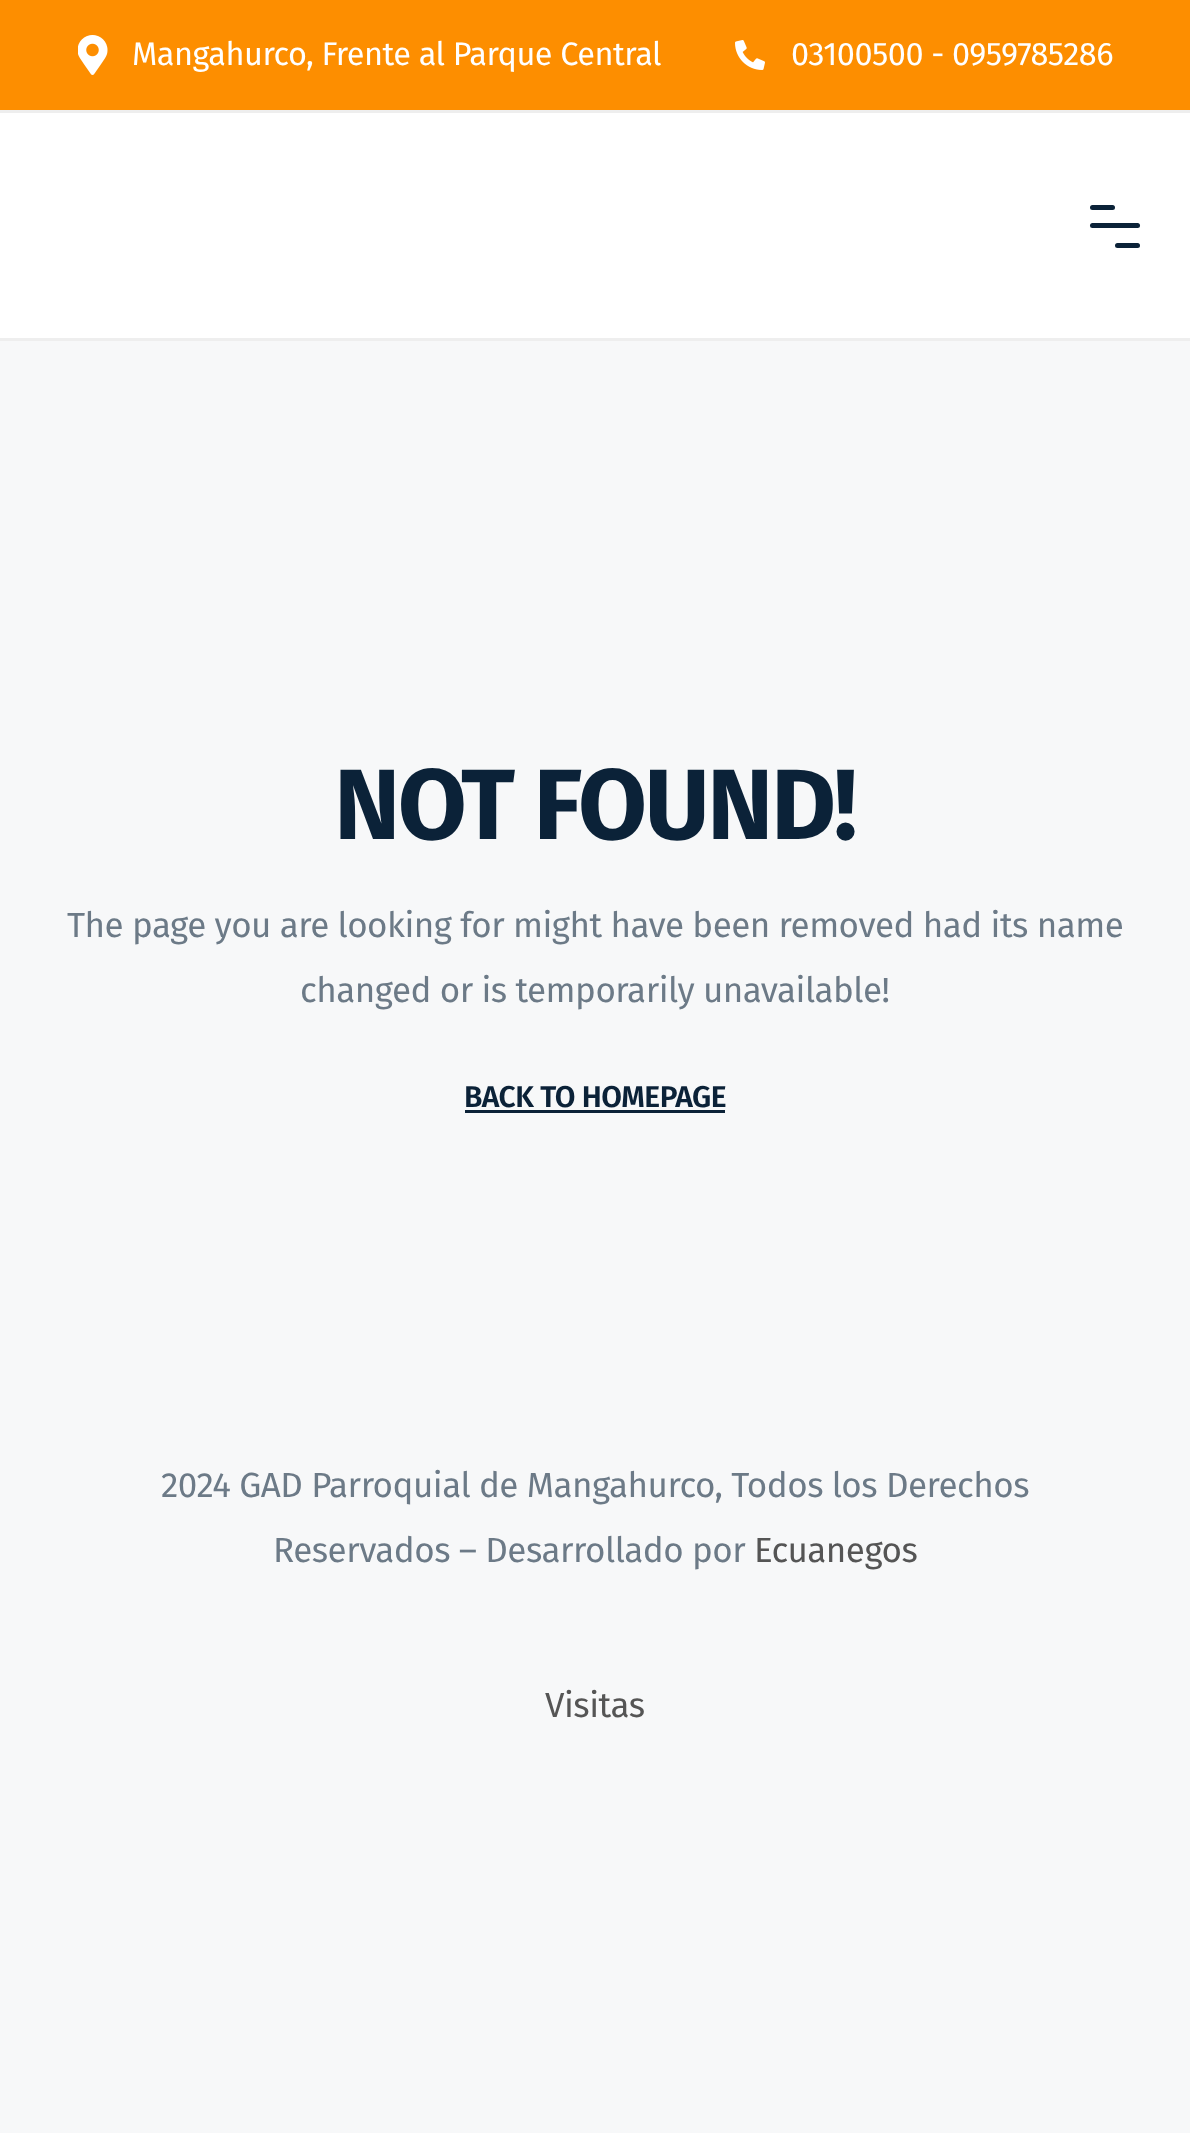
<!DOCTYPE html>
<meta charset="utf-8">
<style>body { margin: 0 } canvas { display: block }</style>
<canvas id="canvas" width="1190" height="2133"></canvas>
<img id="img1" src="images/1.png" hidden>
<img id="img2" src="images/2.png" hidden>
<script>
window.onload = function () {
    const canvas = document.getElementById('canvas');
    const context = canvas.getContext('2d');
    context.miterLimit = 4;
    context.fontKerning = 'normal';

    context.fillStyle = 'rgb(247, 248, 249)';
    context.fillRect(0, 0, 1190, 2133);
    context.fillStyle = 'rgb(253, 142, 0)';
    context.fillRect(0, 0, 1190, 110);
    context.fillStyle = 'rgb(238, 238, 238)';
    context.fillRect(0, 110, 1190, 3);
    context.drawImage(document.getElementById('img1'), 78, 35, 30, 40);
    context.drawImage(document.getElementById('img2'), 735, 40, 30, 30);
    context.fillStyle = 'rgb(255, 255, 255)';
    context.fillRect(0, 113, 1190, 225);
    context.fillStyle = 'rgb(238, 238, 238)';
    context.fillRect(0, 338, 1190, 3);
    context.fillStyle = 'rgb(11, 34, 56)';
    context.beginPath();
    context.roundRect(1090, 205, 25, 5, 2.5);
    context.fill();
    context.beginPath();
    context.roundRect(1090, 223, 50, 5, 2.5);
    context.fill();
    context.beginPath();
    context.roundRect(1115, 243, 25, 5, 2.5);
    context.fill();
    context.fillRect(465, 1110, 260, 3);
    context.letterSpacing = '-0.5px';
    context.font = '32.5px Fira Sans';
    context.fillStyle = 'rgb(255, 255, 255)';
    context.fillText('Mangahurco, Frente al Parque Central', 132, 65);
    context.fillText('03100500 - 0959785286', 791, 65);
    context.letterSpacing = '-2.5px';
    context.font = 'bold 100px Fira Sans';
    context.fillStyle = 'rgb(11, 34, 56)';
    context.fillText('NOT FOUND!', 334, 839);
    context.letterSpacing = '-0.5px';
    context.font = '35px Fira Sans';
    context.fillStyle = 'rgb(108, 122, 135)';
    context.fillText('The page you are looking for might have been removed had its name', 67, 937);
    context.fillText('changed or is temporarily unavailable!', 300, 1002);
    context.font = '600 30px Fira Sans';
    context.fillStyle = 'rgb(11, 34, 56)';
    context.fillText('BACK TO HOMEPAGE', 464, 1107);
    context.font = '35px Fira Sans';
    context.fillStyle = 'rgb(108, 122, 135)';
    context.fillText('2024 GAD Parroquial de Mangahurco, Todos los Derechos', 161, 1497);
    context.fillText('Reservados – Desarrollado por', 273, 1562);
    context.fillStyle = 'rgb(85, 85, 85)';
    context.fillText('Ecuanegos', 754, 1562);
    context.fillText('Visitas', 545, 1717);
};
</script>
